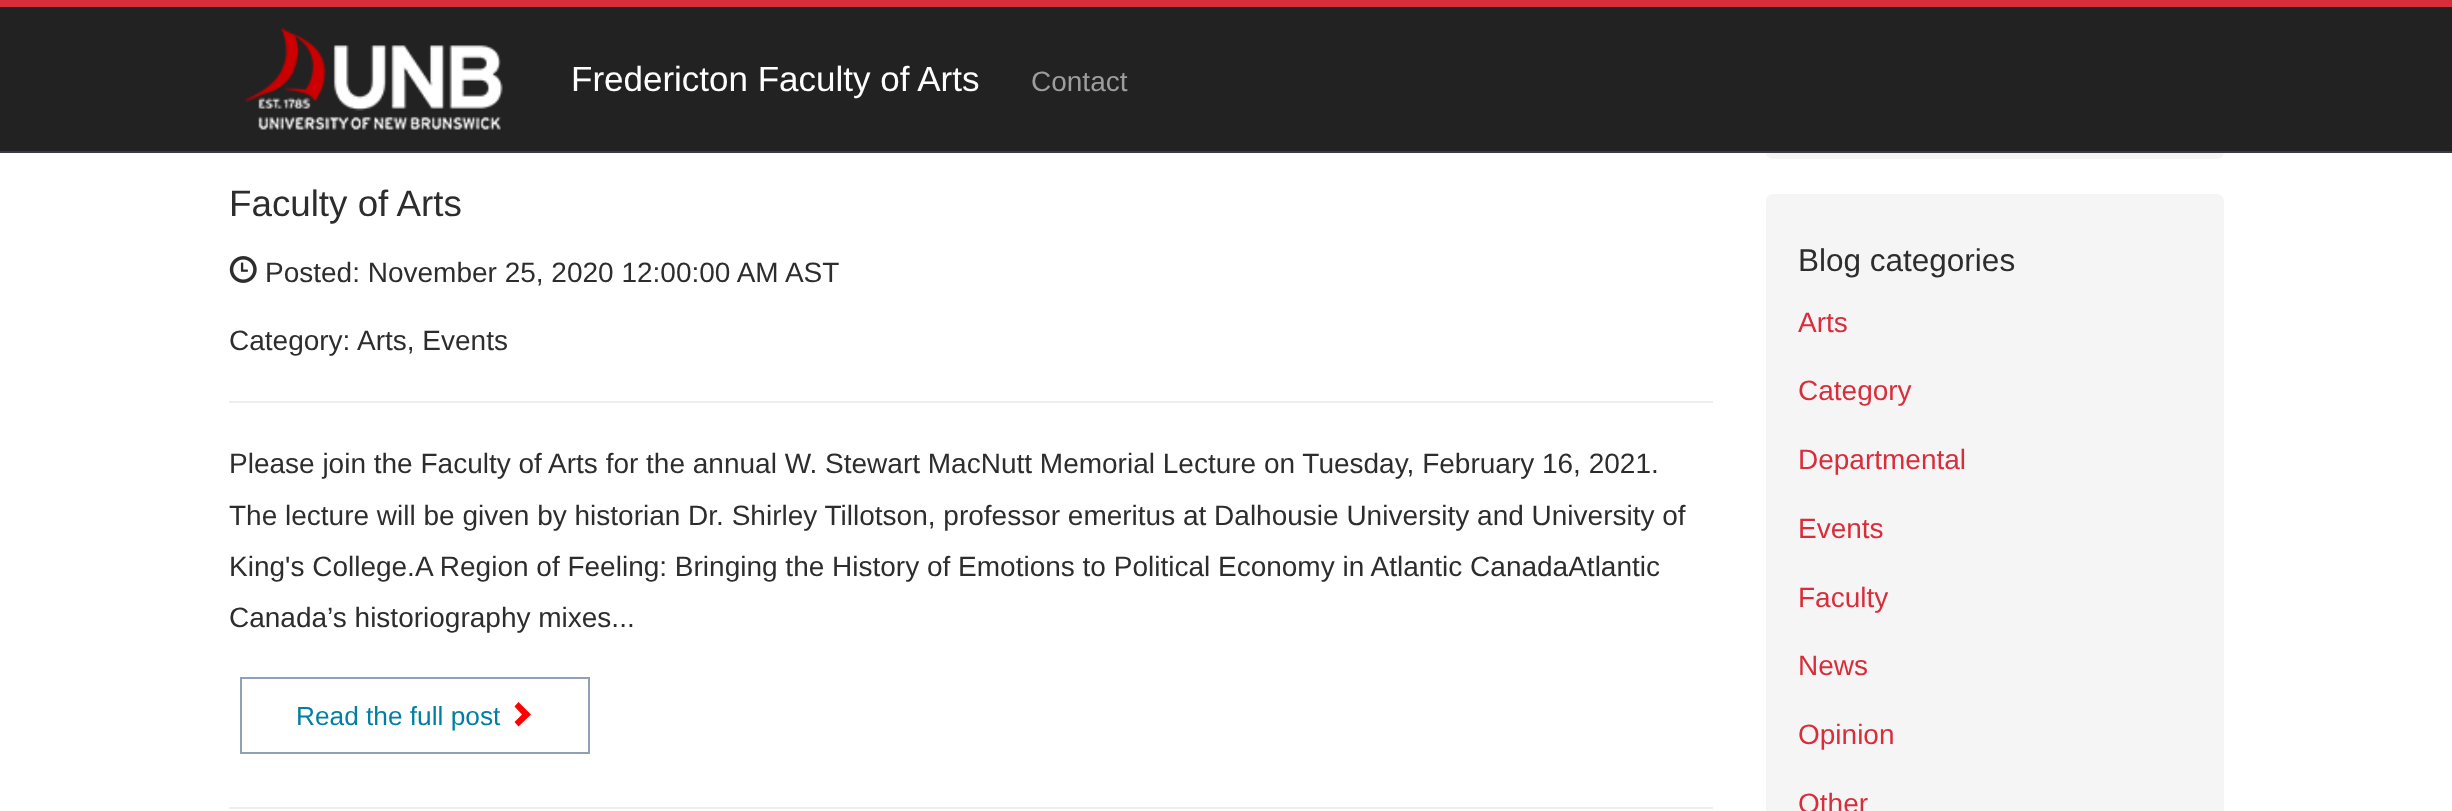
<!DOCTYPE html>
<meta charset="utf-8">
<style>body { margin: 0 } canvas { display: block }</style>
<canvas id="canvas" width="2452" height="811"></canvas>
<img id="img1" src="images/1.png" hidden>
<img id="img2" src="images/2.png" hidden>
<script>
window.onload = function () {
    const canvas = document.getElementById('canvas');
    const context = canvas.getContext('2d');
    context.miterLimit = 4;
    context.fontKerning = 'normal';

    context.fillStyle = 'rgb(255, 255, 255)';
    context.fillRect(0, 0, 2452, 811);
    context.fillStyle = 'rgb(245, 245, 245)';
    context.beginPath();
    context.roundRect(1766, -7, 458, 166, 7);
    context.fill();
    context.fillStyle = 'rgb(34, 34, 34)';
    context.fillRect(0, 7, 2452, 144);
    context.fillStyle = 'rgb(216, 46, 59)';
    context.fillRect(0, 0, 2452, 7);
    context.fillStyle = 'rgb(58, 60, 65)';
    context.fillRect(0, 151, 2452, 2);
    context.drawImage(document.getElementById('img1'), 244, 27, 259, 103);
    context.drawImage(document.getElementById('img2'), 229, 256, 28, 27);
    context.fillStyle = 'rgb(238, 238, 238)';
    context.fillRect(229, 401, 1484, 2);
    context.strokeStyle = 'rgb(141, 161, 183)';
    context.lineWidth = 2;
    context.strokeRect(241, 678, 348, 75);
    context.fillStyle = 'rgb(255, 0, 0)';
    context.beginPath();
    context.moveTo(531, 714.5);
    context.lineTo(518.5, 726.5);
    context.lineTo(514.5, 722);
    context.lineTo(522, 714.5);
    context.lineTo(514.5, 706.5);
    context.lineTo(518.5, 702);
    context.closePath();
    context.fill();
    context.fillStyle = 'rgb(238, 238, 238)';
    context.fillRect(229, 807, 1484, 2);
    context.fillStyle = 'rgb(245, 245, 245)';
    context.beginPath();
    context.roundRect(1766, 194, 458, 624, 7);
    context.fill();
    context.font = '35px Liberation Sans';
    context.fillStyle = 'rgb(255, 255, 255)';
    context.fillText('Fredericton Faculty of Arts', 571, 91);
    context.font = '28px Liberation Sans';
    context.fillStyle = 'rgb(157, 157, 157)';
    context.fillText('Contact', 1031, 91);
    context.font = '36.75px Liberation Sans';
    context.fillStyle = 'rgb(45, 45, 45)';
    context.fillText('Faculty of Arts', 229, 216);
    context.font = '28px Liberation Sans';
    context.fillText('Posted: November 25, 2020 12:00:00 AM AST', 265, 282);
    context.fillText('Category:', 229, 350);
    context.fillText('Arts, Events', 357, 350);
    context.fillText('Please join the Faculty of Arts for the annual W. Stewart MacNutt Memorial Lecture on Tuesday, February 16, 2021.', 229, 473);
    context.fillText('The lecture will be given by historian Dr. Shirley Tillotson, professor emeritus at Dalhousie University and University of', 229, 525);
    context.fillText('King\'s College.A Region of Feeling: Bringing the History of Emotions to Political Economy in Atlantic CanadaAtlantic', 229, 576);
    context.fillText('Canada’s historiography mixes...', 229, 627);
    context.font = '26.25px Liberation Sans';
    context.fillStyle = 'rgb(0, 127, 163)';
    context.fillText('Read the full post', 296, 725);
    context.font = '31.5px Liberation Sans';
    context.fillStyle = 'rgb(45, 45, 45)';
    context.fillText('Blog categories', 1798, 271);
    context.font = '28px Liberation Sans';
    context.fillStyle = 'rgb(216, 46, 59)';
    context.fillText('Arts', 1798, 332);
    context.fillText('Category', 1798, 400);
    context.fillText('Departmental', 1798, 469);
    context.fillText('Events', 1798, 538);
    context.fillText('Faculty', 1798, 607);
    context.fillText('News', 1798, 675);
    context.fillText('Opinion', 1798, 744);
    context.fillText('Other', 1798, 813);
};
</script>
